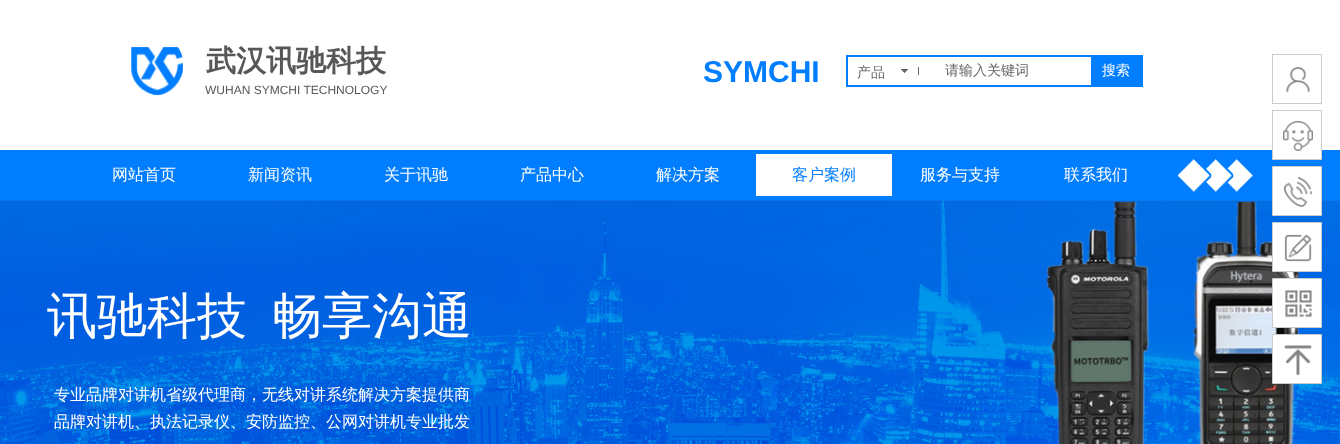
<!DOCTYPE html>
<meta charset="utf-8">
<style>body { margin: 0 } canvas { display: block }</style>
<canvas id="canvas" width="1340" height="444"></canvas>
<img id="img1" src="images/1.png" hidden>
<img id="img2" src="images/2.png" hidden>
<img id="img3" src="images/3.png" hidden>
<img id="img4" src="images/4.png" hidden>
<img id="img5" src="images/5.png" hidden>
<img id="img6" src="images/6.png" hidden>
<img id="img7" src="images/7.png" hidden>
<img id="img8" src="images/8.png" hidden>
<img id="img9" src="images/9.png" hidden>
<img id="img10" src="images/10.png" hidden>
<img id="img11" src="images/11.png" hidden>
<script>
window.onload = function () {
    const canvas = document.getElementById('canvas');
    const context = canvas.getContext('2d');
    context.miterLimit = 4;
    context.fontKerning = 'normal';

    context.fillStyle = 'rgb(255, 255, 255)';
    context.fillRect(0, 0, 1340, 444);
    context.drawImage(document.getElementById('img1'), 131, 47, 52, 49);
    context.strokeStyle = 'rgb(0, 126, 255)';
    context.lineWidth = 2;
    context.strokeRect(847, 56, 295, 30);
    context.drawImage(document.getElementById('img2'), 901, 67, 18, 8);
    context.fillStyle = 'rgb(0, 126, 255)';
    context.fillRect(1091, 57, 50, 28);
    context.fillRect(0, 150, 1340, 50);
    context.fillStyle = 'rgb(255, 255, 255)';
    context.fillRect(756, 154, 136, 42);
    context.drawImage(document.getElementById('img3'), 1178, 159, 75, 33);
    context.drawImage(document.getElementById('img4'), 0, 200, 1340, 244);
    context.drawImage(document.getElementById('img5'), 1047, 201, 252, 243);
    context.strokeStyle = 'rgb(204, 204, 204)';
    context.lineWidth = 1;
    context.strokeRect(1272.5, 54.5, 49, 49);
    context.drawImage(document.getElementById('img6'), 1285, 66, 26, 27);
    context.fillRect(1273, 150, 48, 9);
    context.strokeRect(1272.5, 110.5, 49, 49);
    context.drawImage(document.getElementById('img7'), 1283, 121, 30, 30);
    context.beginPath();
    context.rect(1272.5, 166.5, 49, 49);
    context.fill();
    context.stroke();
    context.drawImage(document.getElementById('img8'), 1284, 177, 29, 30);
    context.beginPath();
    context.rect(1272.5, 222.5, 49, 49);
    context.fill();
    context.stroke();
    context.drawImage(document.getElementById('img9'), 1284, 234, 28, 28);
    context.beginPath();
    context.rect(1272.5, 278.5, 49, 49);
    context.fill();
    context.stroke();
    context.drawImage(document.getElementById('img10'), 1285, 290, 28, 28);
    context.beginPath();
    context.rect(1272.5, 334.5, 49, 49);
    context.fill();
    context.stroke();
    context.drawImage(document.getElementById('img11'), 1284, 345, 28, 30);
    context.font = 'bold 30px WenQuanYi Zen Hei';
    context.fillStyle = 'rgb(87, 87, 87)';
    context.fillText('武汉讯驰科技', 206, 71);
    context.font = 'bold 30px Liberation Sans';
    context.fillStyle = 'rgb(0, 126, 255)';
    context.fillText('SYMCHI', 703, 82);
    context.font = '500 14px WenQuanYi Zen Hei';
    context.fillStyle = 'rgb(102, 102, 102)';
    context.fillText('产品', 857, 77);
    context.fillText('请输入关键词', 945, 75);
    context.fillStyle = 'rgb(255, 255, 255)';
    context.fillText('搜索', 1102, 75);
    context.font = '12px Liberation Sans';
    context.fillStyle = 'rgb(87, 87, 87)';
    context.fillText('WUHAN SYMCHI TECHNOLOGY', 205, 94);
    context.font = '500 16px WenQuanYi Zen Hei';
    context.fillStyle = 'rgb(255, 255, 255)';
    context.fillText('网站首页', 112, 180);
    context.fillText('新闻资讯', 248, 180);
    context.fillText('关于讯驰', 384, 180);
    context.fillText('产品中心', 520, 180);
    context.fillText('解决方案', 656, 180);
    context.fillStyle = 'rgb(0, 126, 255)';
    context.fillText('客户案例', 792, 180);
    context.fillStyle = 'rgb(255, 255, 255)';
    context.fillText('服务与支持', 920, 180);
    context.fillText('联系我们', 1064, 180);
    context.font = '500 50px WenQuanYi Zen Hei';
    context.fillText('讯驰科技', 47, 333);
    context.fillText('畅享沟通', 272, 333);
    context.font = '500 16px WenQuanYi Zen Hei';
    context.fillText('专业品牌对讲机省级代理商，无线对讲系统解决方案提供商', 54, 400);
    context.fillText('品牌对讲机、执法记录仪、安防监控、公网对讲机专业批发', 54, 427);
};
</script>
